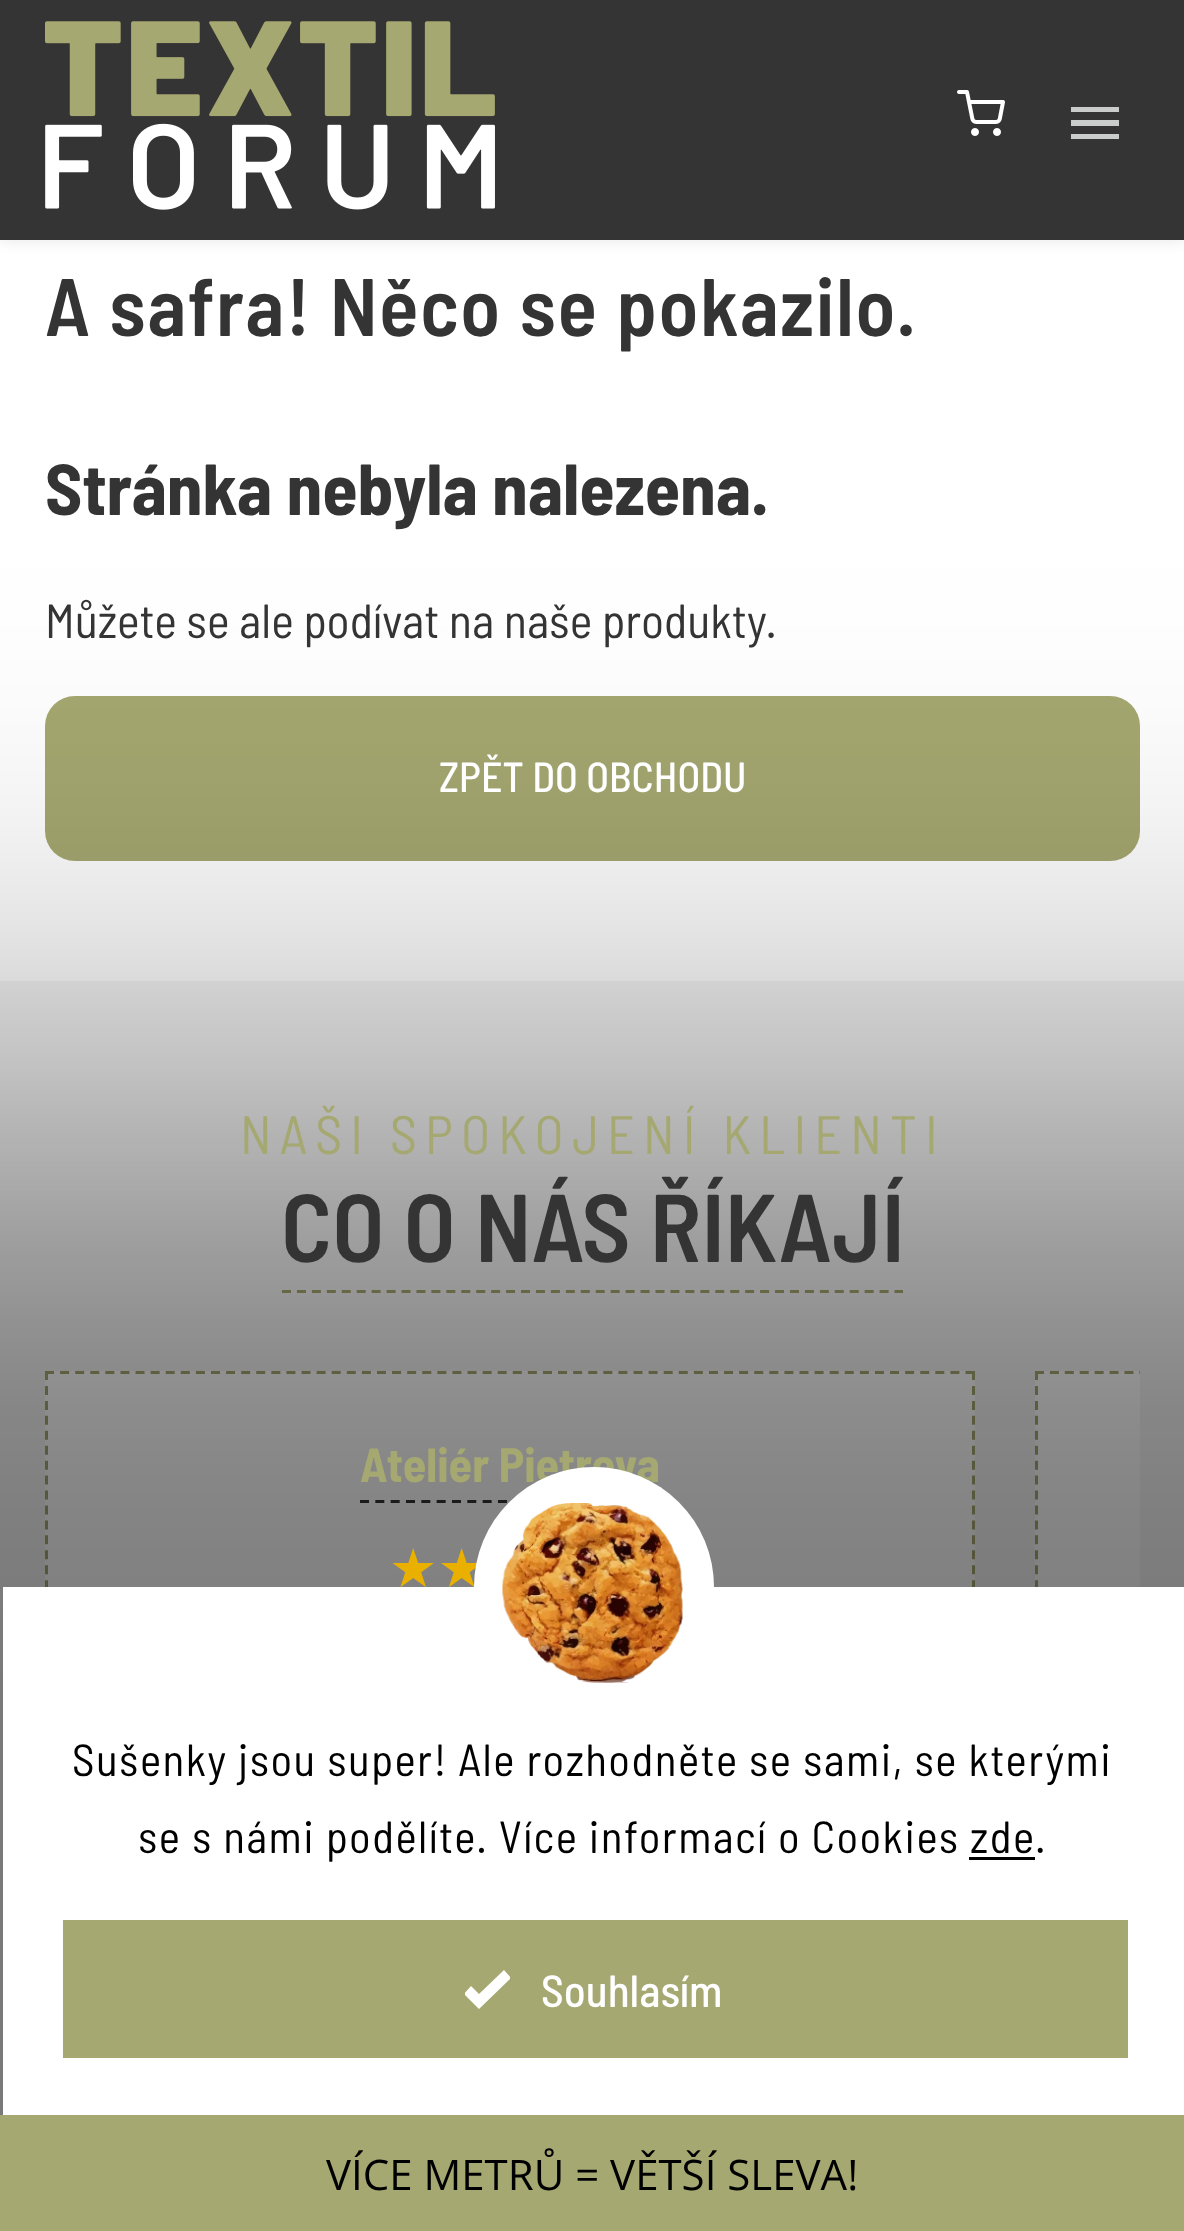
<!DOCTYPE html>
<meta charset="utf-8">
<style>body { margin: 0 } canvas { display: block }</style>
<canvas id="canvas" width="1184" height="2231"></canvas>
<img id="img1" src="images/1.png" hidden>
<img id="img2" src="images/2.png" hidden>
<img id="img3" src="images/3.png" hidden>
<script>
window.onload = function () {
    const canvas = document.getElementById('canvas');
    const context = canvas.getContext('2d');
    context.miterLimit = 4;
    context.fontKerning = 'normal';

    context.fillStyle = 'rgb(255, 255, 255)';
    context.fillRect(0, 0, 1184, 2231);
    context.fillStyle = 'rgba(0, 0, 0, 0.1)';
    context.filter = 'blur(7.5px)';
    context.beginPath();
    context.rect(0, 0, 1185, 240);
    context.fill();
    context.filter = 'none';
    context.fillStyle = 'rgb(53, 52, 52)';
    context.fillRect(0, 0, 1184, 240);
    context.drawImage(document.getElementById('img1'), 45, 21, 450, 189);
    context.drawImage(document.getElementById('img2'), 957, 90, 48, 46);
    context.fillStyle = 'rgb(202, 203, 203)';
    context.beginPath();
    context.moveTo(1071, 139);
    context.lineTo(1119, 139);
    context.lineTo(1119, 134);
    context.lineTo(1071, 134);
    context.closePath();
    context.moveTo(1071, 126);
    context.lineTo(1119, 126);
    context.lineTo(1119, 120);
    context.lineTo(1071, 120);
    context.closePath();
    context.moveTo(1071, 107);
    context.lineTo(1071, 112);
    context.lineTo(1119, 112);
    context.lineTo(1119, 107);
    context.closePath();
    context.fill();
    context.fillStyle = 'rgb(166, 168, 113)';
    context.beginPath();
    context.roundRect(45, 696, 1095, 165, 30);
    context.fill();
    context.fillStyle = 'rgb(245, 245, 245)';
    context.fillRect(0, 981, 1184, 1134);
    context.beginPath();
    context.moveTo(282, 1291.5);
    context.lineTo(903, 1291.5);
    context.strokeStyle = 'rgb(166, 168, 113)';
    context.lineWidth = 3;
    context.setLineDash([9, 5.94]);
    context.stroke();
    context.fillStyle = 'rgb(255, 255, 255)';
    context.fillRect(45, 1371, 930, 216);
    context.beginPath();
    context.moveTo(45, 1372.5);
    context.lineTo(975, 1372.5);
    context.setLineDash([9, 6.09]);
    context.stroke();
    context.beginPath();
    context.moveTo(973.5, 1371);
    context.lineTo(973.5, 2157);
    context.setLineDash([9, 5.94]);
    context.stroke();
    context.beginPath();
    context.moveTo(46.5, 1371);
    context.lineTo(46.5, 2157);
    context.stroke();
    context.beginPath();
    context.moveTo(360, 1501.5);
    context.lineTo(660, 1501.5);
    context.strokeStyle = 'rgb(53, 52, 52)';
    context.setLineDash([9, 6.33]);
    context.stroke();
    context.fillRect(1035, 1371, 105, 216);
    context.save();
    context.beginPath();
    context.rect(45, 1371, 1095, 786);
    context.clip();
    context.beginPath();
    context.moveTo(1035, 1372.5);
    context.lineTo(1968, 1372.5);
    context.strokeStyle = 'rgb(166, 168, 113)';
    context.setLineDash([9, 5.91]);
    context.stroke();
    context.restore();
    context.beginPath();
    context.moveTo(1036.5, 1371);
    context.lineTo(1036.5, 2157);
    context.strokeStyle = 'rgb(166, 168, 113)';
    context.setLineDash([9, 5.94]);
    context.stroke();
    context.fillStyle = 'rgba(0, 0, 0, 0.5)';
    context.filter = 'blur(240px)';
    context.beginPath();
    context.rect(-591, 1116, 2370, 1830);
    context.fill();
    context.filter = 'none';
    context.fillStyle = 'rgb(166, 168, 113)';
    context.fillRect(0, 2115, 1184, 116);
    context.letterSpacing = '1.5px';
    context.font = '600 81.6px Barlow Semi Condensed';
    context.fillStyle = 'rgb(53, 52, 52)';
    context.fillText('A safra! Něco se pokazilo.', 45, 336);
    context.letterSpacing = '0px';
    context.font = 'bold 72px Barlow Semi Condensed';
    context.fillText('Stránka nebyla nalezena.', 45, 515);
    context.font = '48px Barlow Semi Condensed';
    context.fillText('Můžete se ale podívat na naše produkty.', 45, 638);
    context.font = '500 42px Barlow Semi Condensed';
    context.fillStyle = 'rgb(255, 255, 255)';
    context.fillText('ZPĚT DO OBCHODU', 439, 792);
    context.letterSpacing = '8.1px';
    context.font = '54px Barlow Semi Condensed';
    context.fillStyle = 'rgb(166, 168, 113)';
    context.fillText('NAŠI SPOKOJENÍ KLIENTI', 240, 1154);
    context.letterSpacing = '0px';
    context.font = '600 96px Barlow Semi Condensed';
    context.fillStyle = 'rgb(53, 52, 52)';
    context.fillText('CO O NÁS ŘÍKAJÍ', 281, 1262);
    context.font = 'bold 48px Barlow Semi Condensed';
    context.fillStyle = 'rgb(166, 168, 113)';
    context.fillText('Ateliér Pietrova', 360, 1482);
    context.font = '54px DejaVu Sans';
    context.fillStyle = 'rgb(234, 176, 0)';
    context.fillText('★★', 389, 1587);
    context.fillStyle = 'rgb(255, 255, 255)';
    context.fillRect(3, 1587, 1181, 528);
    context.beginPath();
    context.arc(594, 1587, 120, 0, 2 * Math.PI);
    context.fill();
    context.drawImage(document.getElementById('img3'), 502, 1503, 181, 180);
    context.letterSpacing = '1.5px';
    context.font = '45px Barlow Semi Condensed';
    context.fillStyle = 'rgb(0, 0, 0)';
    context.fillText('Sušenky jsou super! Ale rozhodněte se sami, se kterými', 72, 1776);
    context.fillText('se s námi podělíte. Více informací o Cookies zde', 138, 1853);
    context.fillText('.', 1035, 1853);
    context.fillRect(969, 1857, 66, 3);
    context.fillStyle = 'rgb(166, 168, 113)';
    context.fillRect(63, 1920, 1065, 138);
    context.save();
    context.beginPath();
    context.rect(465, 1968, 45, 42);
    context.clip();
    context.fillStyle = 'rgb(255, 255, 255)';
    context.beginPath();
    context.moveTo(504, 1970);
    context.lineTo(479, 1994);
    context.lineTo(471, 1986);
    context.lineTo(464, 1994);
    context.lineTo(479, 2009);
    context.lineTo(511, 1978);
    context.closePath();
    context.fill();
    context.restore();
    context.letterSpacing = '0px';
    context.font = '500 45px Barlow Semi Condensed';
    context.fillStyle = 'rgb(255, 255, 255)';
    context.fillText('Souhlasím', 541, 2007);
    context.font = '42px Open Sans';
    context.fillStyle = 'rgb(0, 0, 0)';
    context.fillText('VÍCE METRŮ = VĚTŠÍ SLEVA!', 326, 2190);
};
</script>
